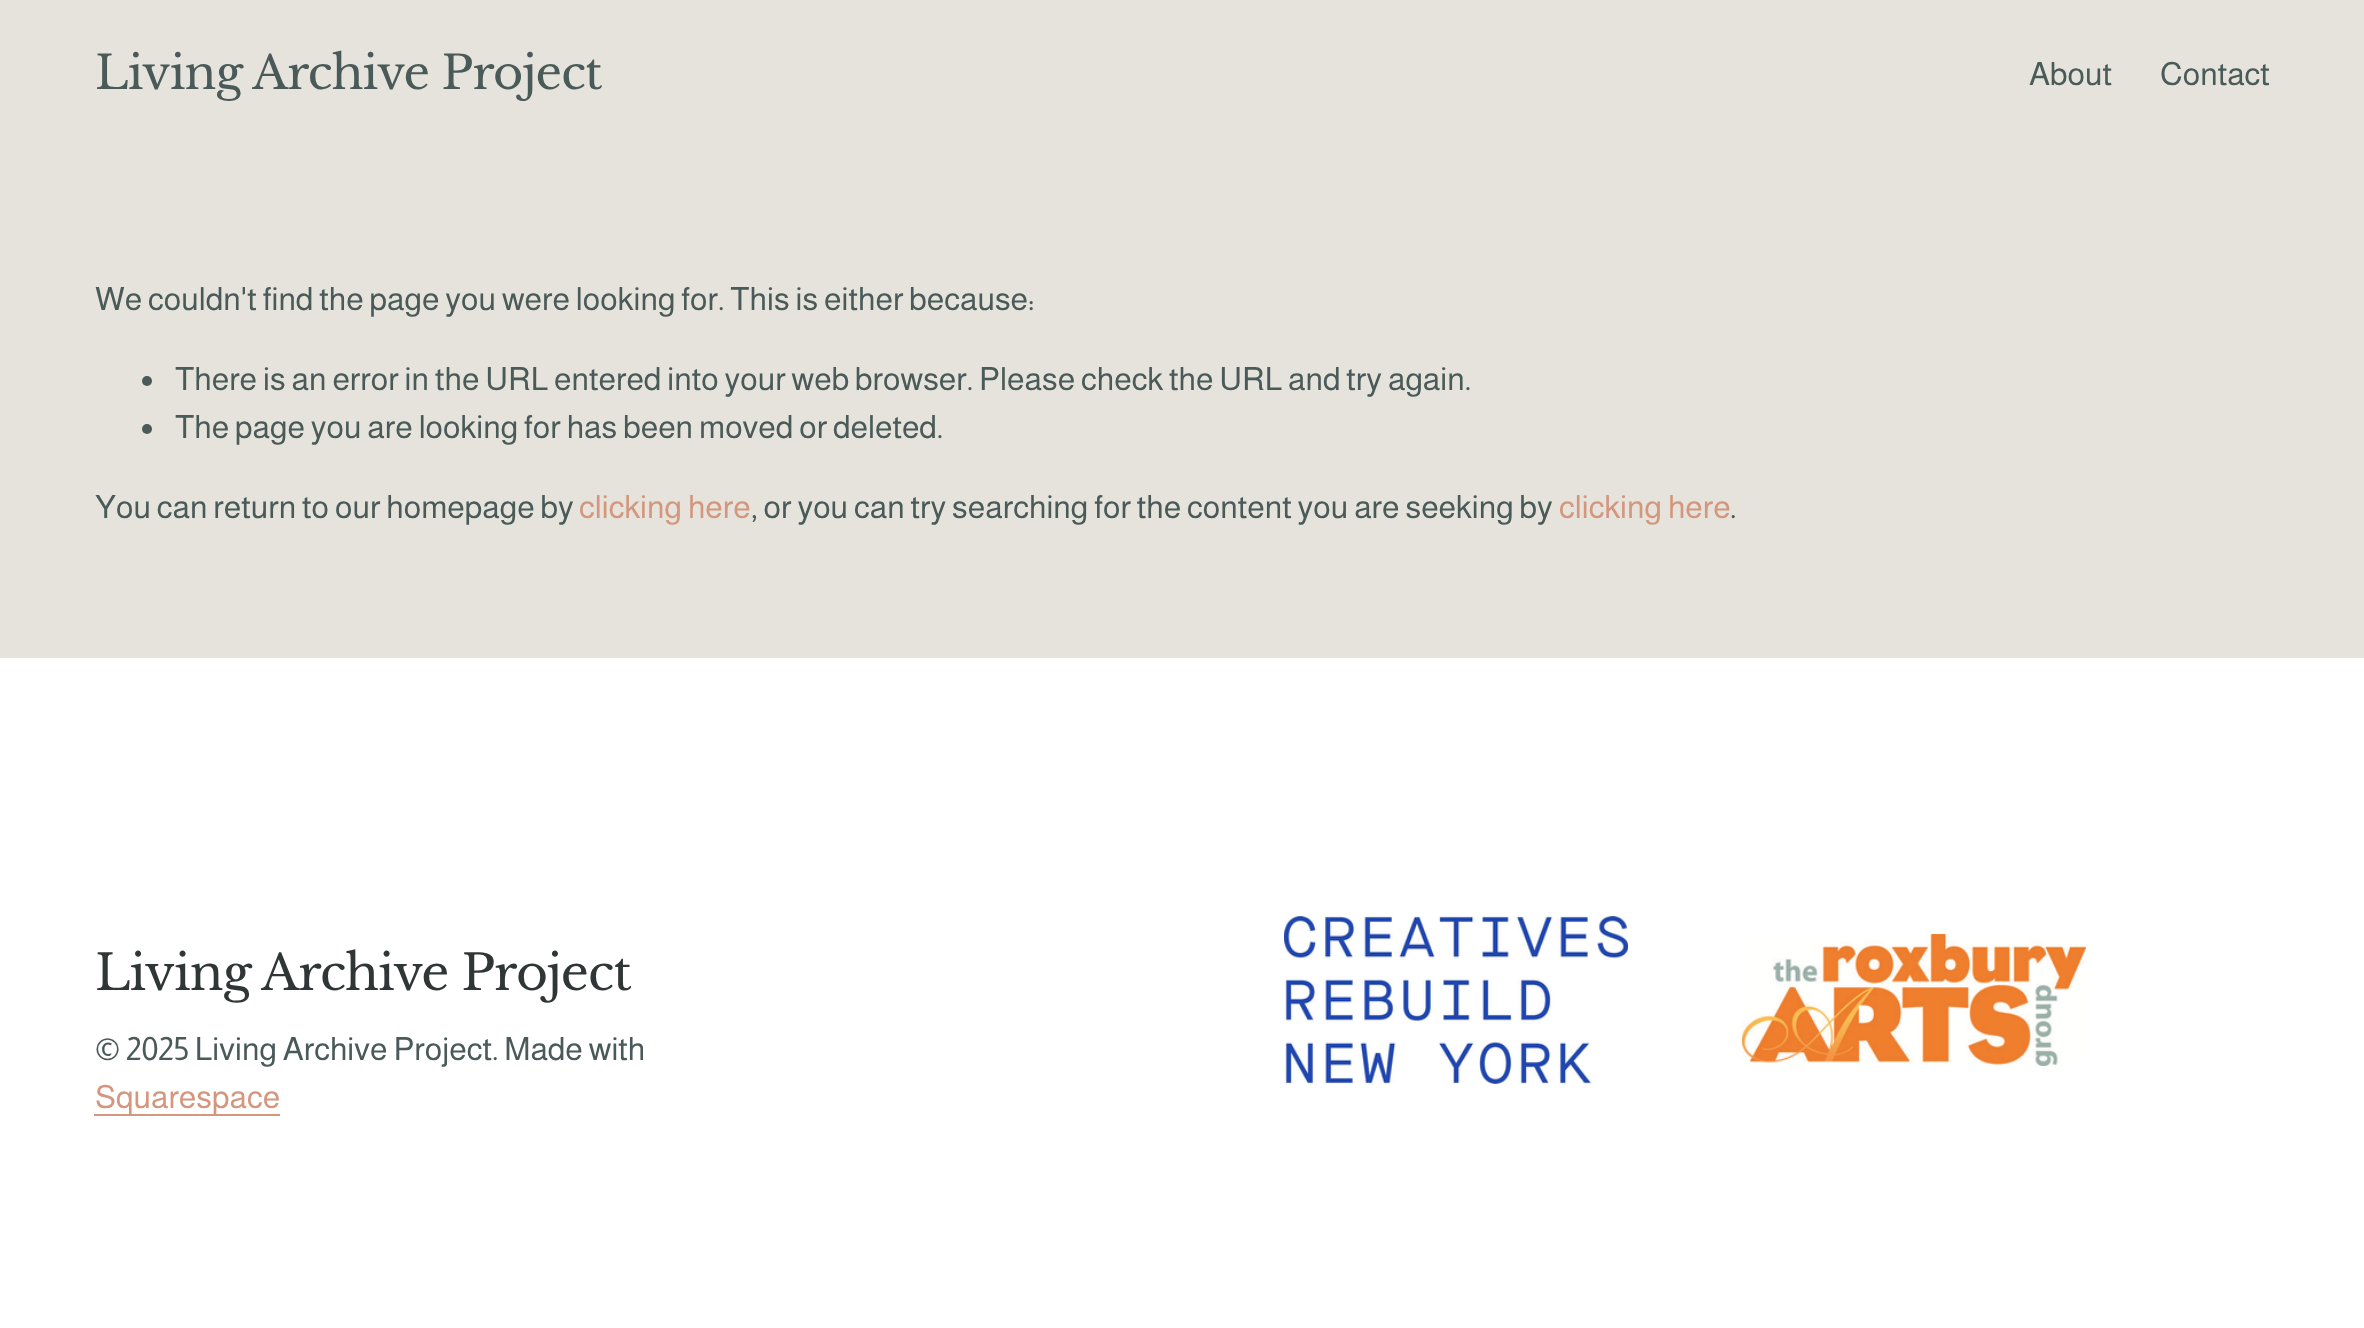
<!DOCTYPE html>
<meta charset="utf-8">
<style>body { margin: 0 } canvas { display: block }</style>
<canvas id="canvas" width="2364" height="1328"></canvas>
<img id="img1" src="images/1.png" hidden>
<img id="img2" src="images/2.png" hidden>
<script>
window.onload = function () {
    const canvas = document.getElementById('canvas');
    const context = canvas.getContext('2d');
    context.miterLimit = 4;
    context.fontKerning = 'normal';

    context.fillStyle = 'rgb(229, 227, 220)';
    context.fillRect(0, 0, 2364, 1328);
    context.fillStyle = 'rgb(73, 90, 88)';
    context.beginPath();
    context.arc(147, 381, 5, 0, 2 * Math.PI);
    context.fill();
    context.beginPath();
    context.arc(147, 429, 5, 0, 2 * Math.PI);
    context.fill();
    context.fillStyle = 'rgb(255, 255, 255)';
    context.fillRect(0, 658, 2364, 670);
    context.drawImage(document.getElementById('img1'), 1284, 916, 344, 168);
    context.drawImage(document.getElementById('img2'), 1742, 934, 344, 132);
    context.fillStyle = 'rgb(212, 150, 125)';
    context.fillRect(94, 1114, 186, 2);
    context.letterSpacing = '-0.9px';
    context.font = '46.25px Libre Baskerville';
    context.fillStyle = 'rgb(73, 90, 88)';
    context.fillText('Living Archive Project', 95, 89);
    context.letterSpacing = '0px';
    context.font = '32px Almarai';
    context.fillText('About', 2029, 85);
    context.fillText('Contact', 2160, 85);
    context.fillText('We couldn\'t find the page you were looking for. This is either because:', 95, 310);
    context.fillText('There is an error in the URL entered into your web browser. Please check the URL and try again.', 175, 390);
    context.fillText('The page you are looking for has been moved or deleted.', 175, 438);
    context.fillText('You can return to our homepage by', 95, 518);
    context.fillStyle = 'rgb(212, 150, 125)';
    context.fillText('clicking here', 579, 518);
    context.fillStyle = 'rgb(73, 90, 88)';
    context.fillText(', or you can try searching for the content you are seeking by', 751, 518);
    context.fillStyle = 'rgb(212, 150, 125)';
    context.fillText('clicking here', 1559, 518);
    context.fillStyle = 'rgb(73, 90, 88)';
    context.fillText('.', 1730, 518);
    context.letterSpacing = '-1px';
    context.font = '49px Libre Baskerville';
    context.fillStyle = 'rgb(48, 54, 54)';
    context.fillText('Living Archive Project', 95, 990);
    context.letterSpacing = '0px';
    context.font = '32px Almarai';
    context.fillStyle = 'rgb(73, 90, 88)';
    context.fillText('© 2025 Living Archive Project. Made with', 95, 1060);
    context.fillStyle = 'rgb(212, 150, 125)';
    context.fillText('Squarespace', 95, 1108);
};
</script>
